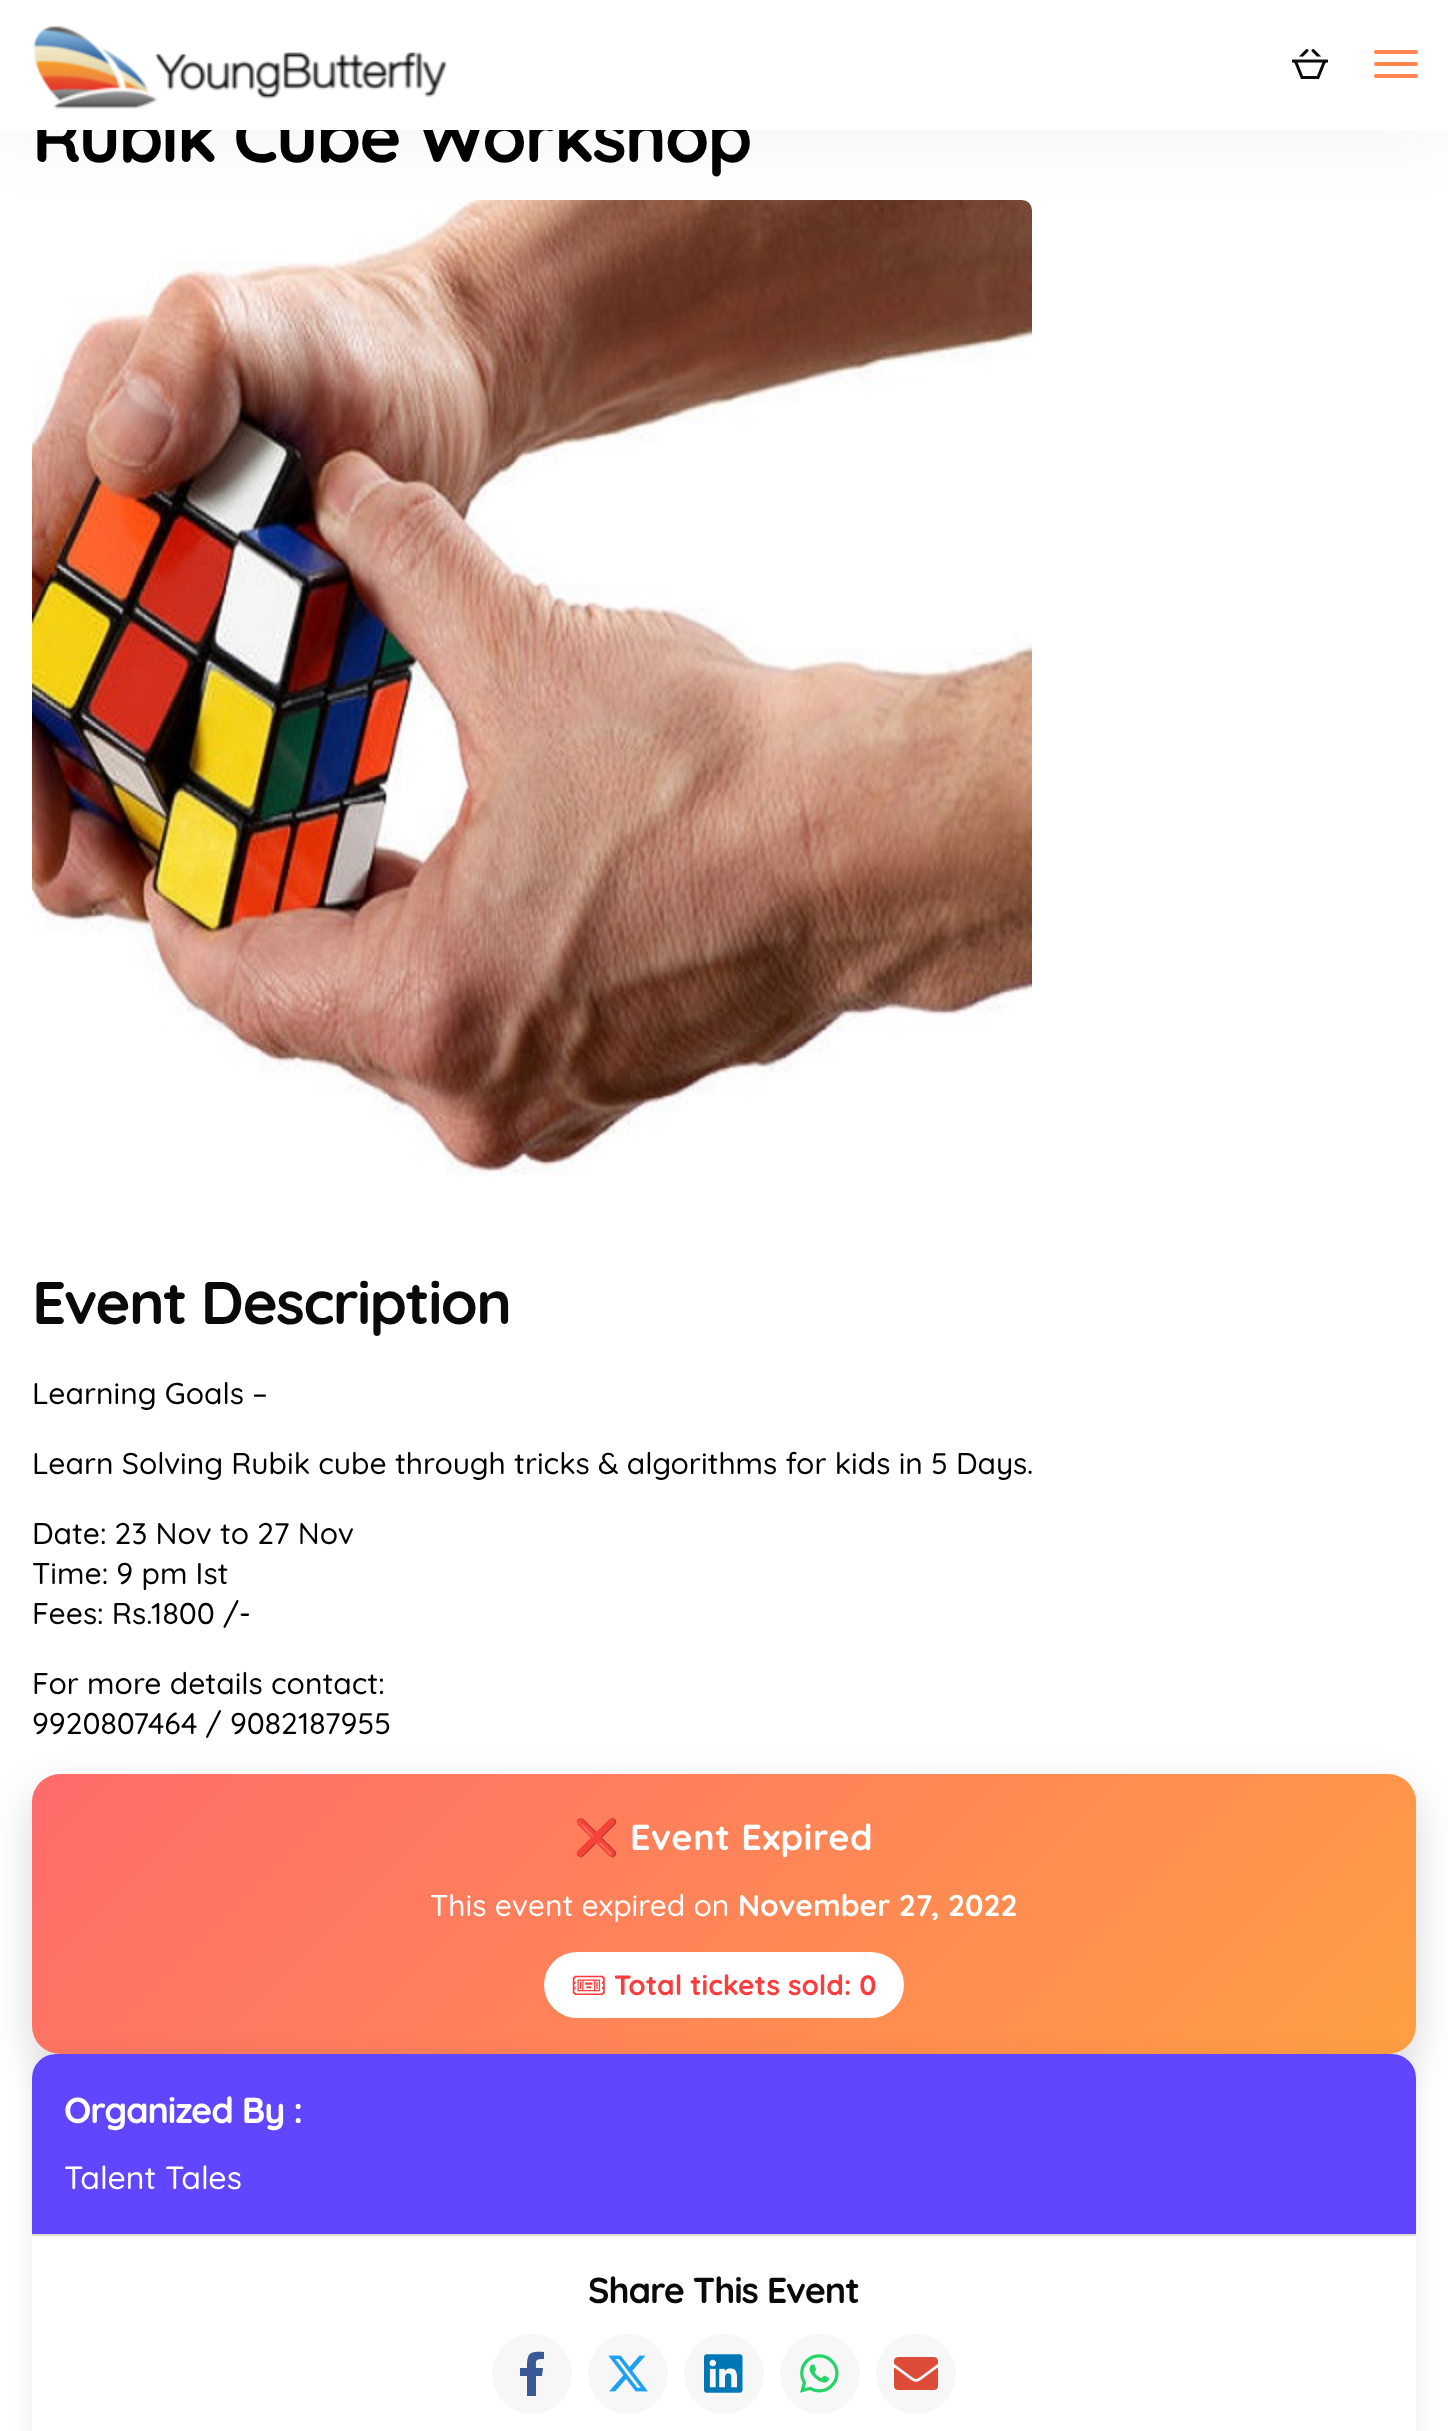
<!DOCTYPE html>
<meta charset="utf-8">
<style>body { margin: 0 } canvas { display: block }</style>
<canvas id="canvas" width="1448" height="2431"></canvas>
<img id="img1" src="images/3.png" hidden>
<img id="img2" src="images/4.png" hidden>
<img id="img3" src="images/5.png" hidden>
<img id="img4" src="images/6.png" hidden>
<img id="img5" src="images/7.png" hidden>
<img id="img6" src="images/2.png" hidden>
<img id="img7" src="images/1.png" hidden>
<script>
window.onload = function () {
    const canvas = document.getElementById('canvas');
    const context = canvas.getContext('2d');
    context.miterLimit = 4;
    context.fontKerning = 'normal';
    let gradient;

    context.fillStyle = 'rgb(255, 255, 255)';
    context.fillRect(0, 0, 1448, 2431);
    context.drawImage(document.getElementById('img1'), 32, 200, 1000, 977);
    context.fillStyle = 'rgba(15, 15, 15, 0.05)';
    context.filter = 'blur(40px)';
    context.beginPath();
    context.rect(0, 4, 1448, 130);
    context.fill();
    context.filter = 'none';
    context.fillStyle = 'rgba(0, 0, 0, 0.15)';
    context.filter = 'blur(20px)';
    context.beginPath();
    context.roundRect(32, 1790, 1384, 280, 28);
    context.fill();
    context.filter = 'none';
    gradient = context.createLinearGradient(308, 1498, 1140, 2330);
    gradient.addColorStop(0, 'rgb(255, 107, 107)');
    gradient.addColorStop(1, 'rgb(255, 159, 67)');
    context.fillStyle = gradient;
    context.beginPath();
    context.roundRect(32, 1774, 1384, 280, 28);
    context.fill();
    context.fillStyle = 'rgb(255, 255, 255)';
    context.beginPath();
    context.roundRect(544, 1952, 360, 66, 33);
    context.fill();
    context.fillStyle = 'rgba(0, 0, 0, 0.08)';
    context.filter = 'blur(12px)';
    context.beginPath();
    context.roundRect(32, 2058, 1384, 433, 24);
    context.fill();
    context.filter = 'none';
    context.fillStyle = 'rgb(255, 255, 255)';
    context.beginPath();
    context.roundRect(32, 2054, 1384, 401, 24);
    context.fill();
    context.fillStyle = 'rgb(96, 70, 255)';
    context.beginPath();
    context.roundRect(32, 2054, 1384, 180, [24, 24, 0, 0]);
    context.fill();
    context.fillStyle = 'rgb(221, 221, 221)';
    context.fillRect(32, 2234, 1384, 2);
    context.fillStyle = 'rgb(247, 247, 247)';
    context.beginPath();
    context.arc(532, 2374, 40, 0, 2 * Math.PI);
    context.fill();
    context.fillStyle = 'rgb(59, 89, 152)';
    context.beginPath();
    context.moveTo(542, 2376);
    context.lineTo(536, 2376);
    context.lineTo(536, 2396);
    context.lineTo(527, 2396);
    context.lineTo(527, 2376);
    context.lineTo(520, 2376);
    context.lineTo(520, 2368);
    context.lineTo(527, 2368);
    context.bezierCurveTo(527, 2353, 529, 2351, 544, 2352);
    context.lineTo(544, 2359);
    context.bezierCurveTo(535, 2359, 536, 2360, 536, 2368);
    context.lineTo(543, 2368);
    context.closePath();
    context.fill();
    context.fillStyle = 'rgb(247, 247, 247)';
    context.beginPath();
    context.arc(628, 2374, 40, 0, 2 * Math.PI);
    context.fill();
    context.drawImage(document.getElementById('img2'), 608, 2355, 40, 37);
    context.beginPath();
    context.arc(724, 2374, 40, 0, 2 * Math.PI);
    context.fill();
    context.drawImage(document.getElementById('img3'), 704, 2354, 39, 39);
    context.beginPath();
    context.arc(820, 2374, 40, 0, 2 * Math.PI);
    context.fill();
    context.drawImage(document.getElementById('img4'), 800, 2354, 39, 39);
    context.beginPath();
    context.arc(916, 2374, 40, 0, 2 * Math.PI);
    context.fill();
    context.drawImage(document.getElementById('img5'), 894, 2357, 44, 33);
    context.letterSpacing = '-2.2px';
    context.font = 'bold 72px Quicksand';
    context.fillStyle = 'rgb(0, 0, 0)';
    context.fillText('Rubik Cube Workshop', 32, 162);
    context.fillStyle = 'rgb(255, 255, 255)';
    context.fillRect(0, 0, 1448, 130);
    context.drawImage(document.getElementById('img6'), 1292, 49, 36, 30);
    context.fillStyle = 'rgb(254, 133, 79)';
    context.beginPath();
    context.roundRect(1374, 74, 44, 4, 2);
    context.fill();
    context.beginPath();
    context.roundRect(1374, 62, 44, 4, 2);
    context.fill();
    context.beginPath();
    context.roundRect(1374, 50, 44, 4, 2);
    context.fill();
    context.drawImage(document.getElementById('img7'), 33, 26, 414, 83);
    context.letterSpacing = '-1.75px';
    context.font = 'bold 60px Quicksand';
    context.fillStyle = 'rgb(10, 10, 10)';
    context.fillText('Event Description', 32, 1324);
    context.letterSpacing = '0px';
    context.font = '500 30px Quicksand';
    context.fillStyle = 'rgb(0, 0, 0)';
    context.fillText('Learning Goals –', 32, 1404);
    context.fillText('Learn Solving Rubik cube through tricks & algorithms for kids in 5 Days.', 32, 1474);
    context.fillText('Date: 23 Nov to 27 Nov', 32, 1544);
    context.fillText('Time: 9 pm Ist', 32, 1584);
    context.fillText('Fees: Rs.1800 /-', 32, 1624);
    context.fillText('For more details contact:', 32, 1694);
    context.fillText('9920807464 / 9082187955', 32, 1734);
    context.letterSpacing = '0.6px';
    context.font = 'bold 36px Noto Color Emoji';
    context.fillStyle = 'rgb(255, 255, 255)';
    context.fillText('❌', 574, 1850);
    context.font = 'bold 36px Quicksand';
    context.fillText('Event Expired', 630, 1850);
    context.letterSpacing = '0px';
    context.font = '500 30px Quicksand';
    context.fillText('This event expired on', 430, 1916);
    context.font = 'bold 30px Quicksand';
    context.fillText('November 27, 2022', 738, 1916);
    context.font = 'bold 28px Noto Emoji';
    context.fillStyle = 'rgb(255, 59, 59)';
    context.fillText('🎟', 571, 1995);
    context.font = 'bold 28px Quicksand';
    context.fillText('Total tickets sold: 0', 614, 1995);
    context.letterSpacing = '-1.1px';
    context.font = 'bold 36px Quicksand';
    context.fillStyle = 'rgb(255, 255, 255)';
    context.fillText('Organized By :', 64, 2123);
    context.letterSpacing = '0px';
    context.font = '500 32px Quicksand';
    context.fillText('Talent Tales', 64, 2189);
    context.letterSpacing = '-1.1px';
    context.font = 'bold 36px Quicksand';
    context.fillStyle = 'rgb(10, 10, 10)';
    context.fillText('Share This Event', 588, 2303);
};
</script>
